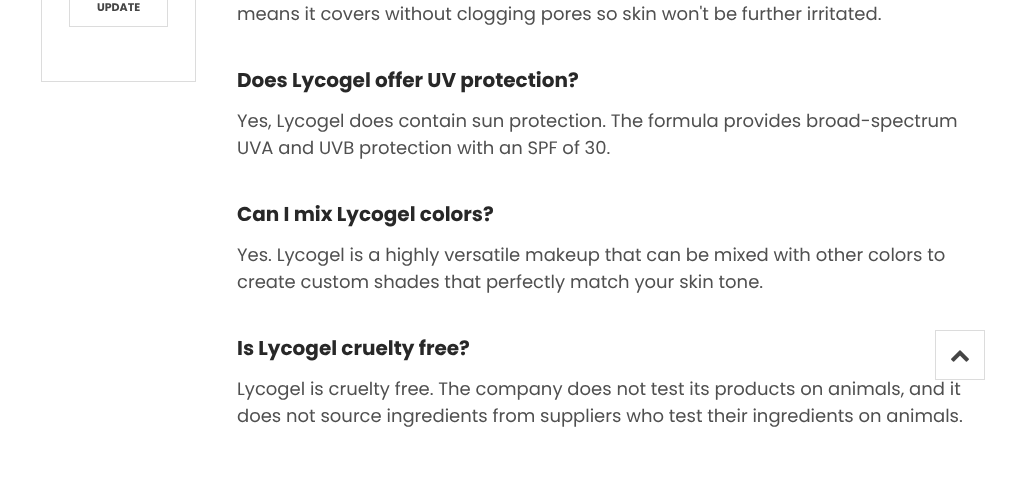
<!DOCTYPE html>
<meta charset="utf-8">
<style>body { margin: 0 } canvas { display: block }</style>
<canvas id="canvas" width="1020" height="480"></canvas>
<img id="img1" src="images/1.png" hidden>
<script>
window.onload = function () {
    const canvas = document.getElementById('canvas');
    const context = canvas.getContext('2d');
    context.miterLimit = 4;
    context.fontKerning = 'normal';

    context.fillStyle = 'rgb(255, 255, 255)';
    context.fillRect(0, 0, 1020, 480);
    context.strokeStyle = 'rgb(220, 220, 220)';
    context.strokeRect(41.5, -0.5, 154, 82);
    context.strokeRect(69.5, -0.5, 98, 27);
    context.strokeRect(935.5, 330.5, 49, 49);
    context.drawImage(document.getElementById('img1'), 951, 350, 18, 12);
    context.font = 'bold 11px Poppins';
    context.fillStyle = 'rgb(69, 69, 69)';
    context.fillText('UPDATE', 97, 11);
    context.font = '18px Poppins';
    context.fillStyle = 'rgb(80, 80, 80)';
    context.fillText('means it covers without clogging pores so skin won\'t be further irritated.', 237, 20);
    context.font = 'bold 20px Poppins';
    context.fillStyle = 'rgb(40, 40, 40)';
    context.fillText('Does Lycogel offer UV protection?', 237, 87);
    context.font = '18px Poppins';
    context.fillStyle = 'rgb(80, 80, 80)';
    context.fillText('Yes, Lycogel does contain sun protection. The formula provides broad-spectrum', 237, 127);
    context.fillText('UVA and UVB protection with an SPF of 30.', 237, 154);
    context.font = 'bold 20px Poppins';
    context.fillStyle = 'rgb(40, 40, 40)';
    context.fillText('Can I mix Lycogel colors?', 237, 221);
    context.font = '18px Poppins';
    context.fillStyle = 'rgb(80, 80, 80)';
    context.fillText('Yes. Lycogel is a highly versatile makeup that can be mixed with other colors to', 237, 261);
    context.fillText('create custom shades that perfectly match your skin tone.', 237, 288);
    context.font = 'bold 20px Poppins';
    context.fillStyle = 'rgb(40, 40, 40)';
    context.fillText('Is Lycogel cruelty free?', 237, 355);
    context.font = '18px Poppins';
    context.fillStyle = 'rgb(80, 80, 80)';
    context.fillText('Lycogel is cruelty free. The company does not test its products on animals, and it', 237, 395);
    context.fillText('does not source ingredients from suppliers who test their ingredients on animals.', 237, 422);
};
</script>
